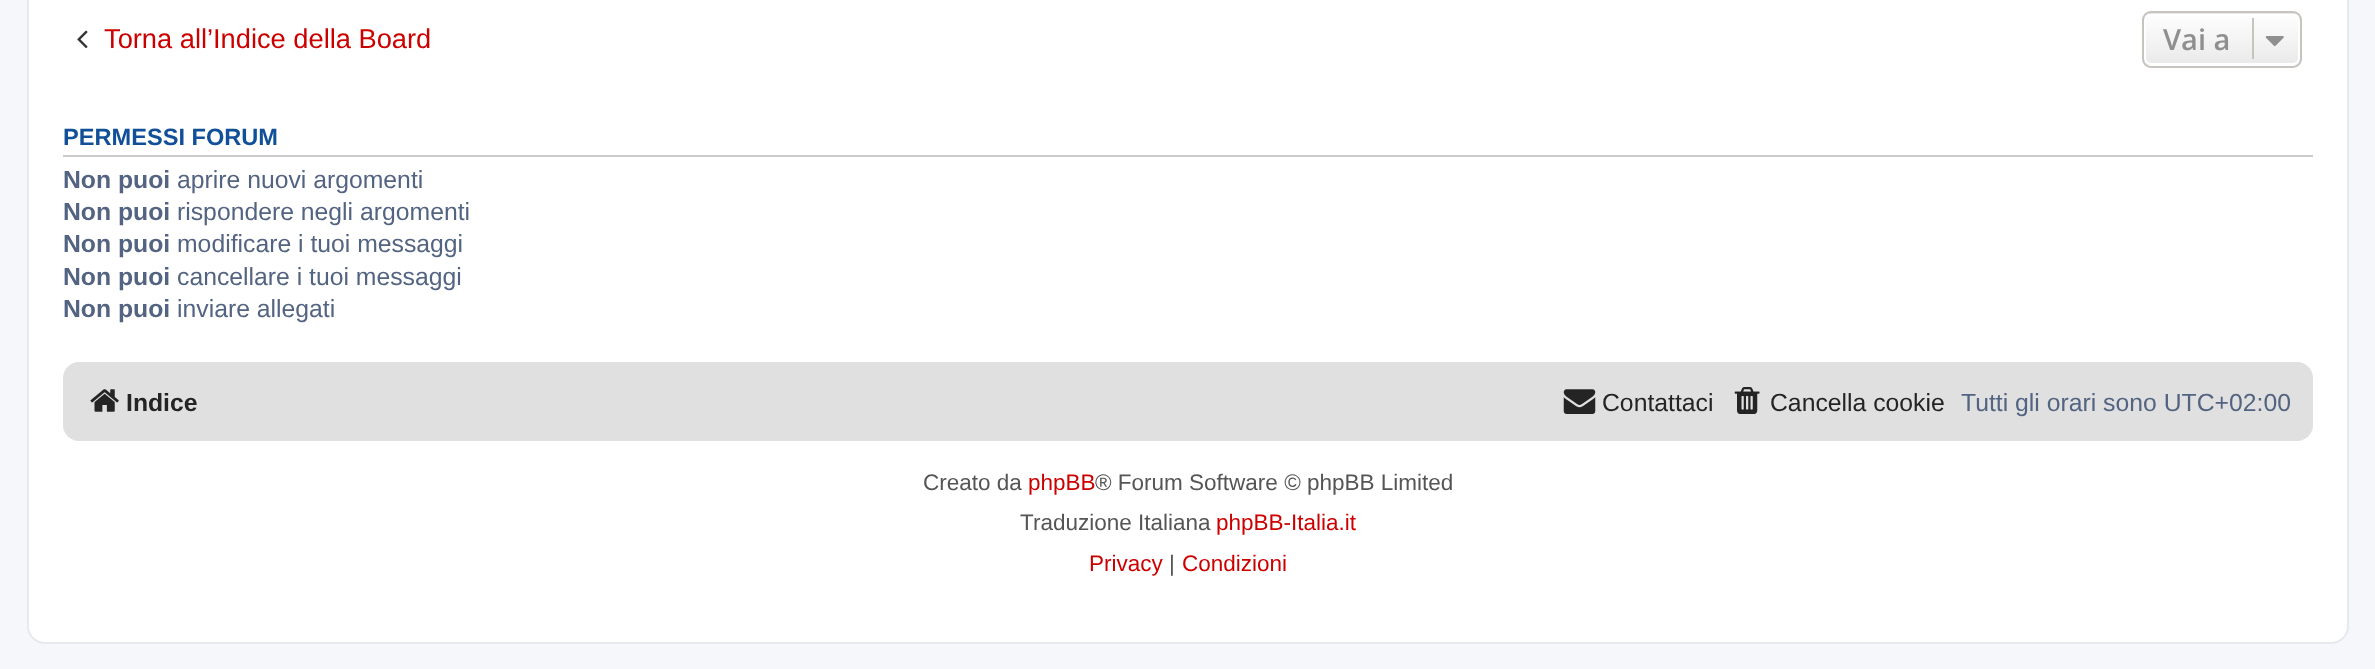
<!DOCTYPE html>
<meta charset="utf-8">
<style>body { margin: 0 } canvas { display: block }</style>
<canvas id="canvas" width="2375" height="669"></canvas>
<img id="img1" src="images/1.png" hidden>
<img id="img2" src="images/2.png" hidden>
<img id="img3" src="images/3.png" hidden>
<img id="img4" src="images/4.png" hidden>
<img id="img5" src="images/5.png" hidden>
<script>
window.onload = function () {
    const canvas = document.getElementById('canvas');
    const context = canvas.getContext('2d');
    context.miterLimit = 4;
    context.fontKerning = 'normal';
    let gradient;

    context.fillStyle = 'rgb(245, 247, 250)';
    context.fillRect(0, 0, 2375, 669);
    context.fillStyle = 'rgb(255, 255, 255)';
    context.beginPath();
    context.roundRect(28, -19, 2320, 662, 17);
    context.fill();
    context.strokeStyle = 'rgb(230, 233, 237)';
    context.lineWidth = 2;
    context.stroke();
    context.drawImage(document.getElementById('img1'), 77, 30, 11, 19);
    context.save();
    context.beginPath();
    context.roundRect(2142, 11, 160, 57, 9);
    context.clip();
    gradient = context.createLinearGradient(2222, -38, 2222, 14);
    gradient.addColorStop(0, 'rgb(255, 255, 255)');
    gradient.addColorStop(1, 'rgb(233, 233, 233)');
    context.fillStyle = gradient;
    context.fillRect(2142, 11, 160, 3);
    gradient = context.createLinearGradient(2222, 13, 2222, 65);
    gradient.addColorStop(0, 'rgb(255, 255, 255)');
    gradient.addColorStop(1, 'rgb(233, 233, 233)');
    context.fillStyle = gradient;
    context.fillRect(2142, 14, 160, 51);
    context.restore();
    context.beginPath();
    context.roundRect(2145, 15, 154, 49, 6);
    context.strokeStyle = 'rgb(255, 255, 255)';
    context.stroke();
    context.beginPath();
    context.roundRect(2143, 12, 158, 55, 8);
    context.strokeStyle = 'rgb(199, 195, 191)';
    context.stroke();
    context.fillStyle = 'rgb(199, 195, 191)';
    context.fillRect(2252, 18, 2, 41);
    context.drawImage(document.getElementById('img2'), 2265, 36, 19, 11);
    context.fillStyle = 'rgb(204, 204, 204)';
    context.fillRect(63, 155, 2250, 2);
    context.fillStyle = 'rgb(224, 224, 224)';
    context.beginPath();
    context.roundRect(63, 362, 2250, 79, 16);
    context.fill();
    context.drawImage(document.getElementById('img3'), 90, 389, 29, 23);
    context.drawImage(document.getElementById('img4'), 1563, 389, 33, 25);
    context.drawImage(document.getElementById('img5'), 1734, 387, 26, 27);
    context.font = '27.25px Liberation Sans';
    context.fillStyle = 'rgb(204, 0, 0)';
    context.fillText('Torna all’Indice della Board', 104, 48);
    context.font = '600 29px Open Sans';
    context.fillStyle = 'rgb(143, 143, 143)';
    context.fillText('Vai a', 2163, 50);
    context.font = 'bold 23.6px Liberation Sans';
    context.fillStyle = 'rgb(17, 80, 152)';
    context.fillText('PERMESSI FORUM', 63, 145);
    context.font = 'bold 24.75px Liberation Sans';
    context.fillStyle = 'rgb(83, 100, 130)';
    context.fillText('Non puoi', 63, 188);
    context.font = '24.75px Liberation Sans';
    context.fillText('aprire nuovi argomenti', 177, 188);
    context.font = 'bold 24.75px Liberation Sans';
    context.fillText('Non puoi', 63, 220);
    context.font = '24.75px Liberation Sans';
    context.fillText('rispondere negli argomenti', 177, 220);
    context.font = 'bold 24.75px Liberation Sans';
    context.fillText('Non puoi', 63, 252);
    context.font = '24.75px Liberation Sans';
    context.fillText('modificare i tuoi messaggi', 177, 252);
    context.font = 'bold 24.75px Liberation Sans';
    context.fillText('Non puoi', 63, 285);
    context.font = '24.75px Liberation Sans';
    context.fillText('cancellare i tuoi messaggi', 177, 285);
    context.font = 'bold 24.75px Liberation Sans';
    context.fillText('Non puoi', 63, 317);
    context.font = '24.75px Liberation Sans';
    context.fillText('inviare allegati', 177, 317);
    context.font = 'bold 24.75px Liberation Sans';
    context.fillStyle = 'rgb(36, 36, 36)';
    context.fillText('Indice', 126, 411);
    context.font = '24.75px Liberation Sans';
    context.fillText('Contattaci', 1602, 411);
    context.fillText('Cancella cookie', 1770, 411);
    context.fillStyle = 'rgb(83, 100, 130)';
    context.fillText('Tutti gli orari sono UTC+02:00', 1961, 411);
    context.font = '22.5px Liberation Sans';
    context.fillStyle = 'rgb(85, 85, 85)';
    context.fillText('Creato da', 923, 490);
    context.fillStyle = 'rgb(204, 0, 0)';
    context.fillText('phpBB', 1028, 490);
    context.fillStyle = 'rgb(85, 85, 85)';
    context.fillText('® Forum Software © phpBB Limited', 1095, 490);
    context.fillText('Traduzione Italiana', 1020, 530);
    context.fillStyle = 'rgb(204, 0, 0)';
    context.fillText('phpBB-Italia.it', 1216, 530);
    context.fillText('Privacy', 1089, 571);
    context.fillStyle = 'rgb(85, 85, 85)';
    context.fillText('|', 1169, 571);
    context.fillStyle = 'rgb(204, 0, 0)';
    context.fillText('Condizioni', 1182, 571);
};
</script>
